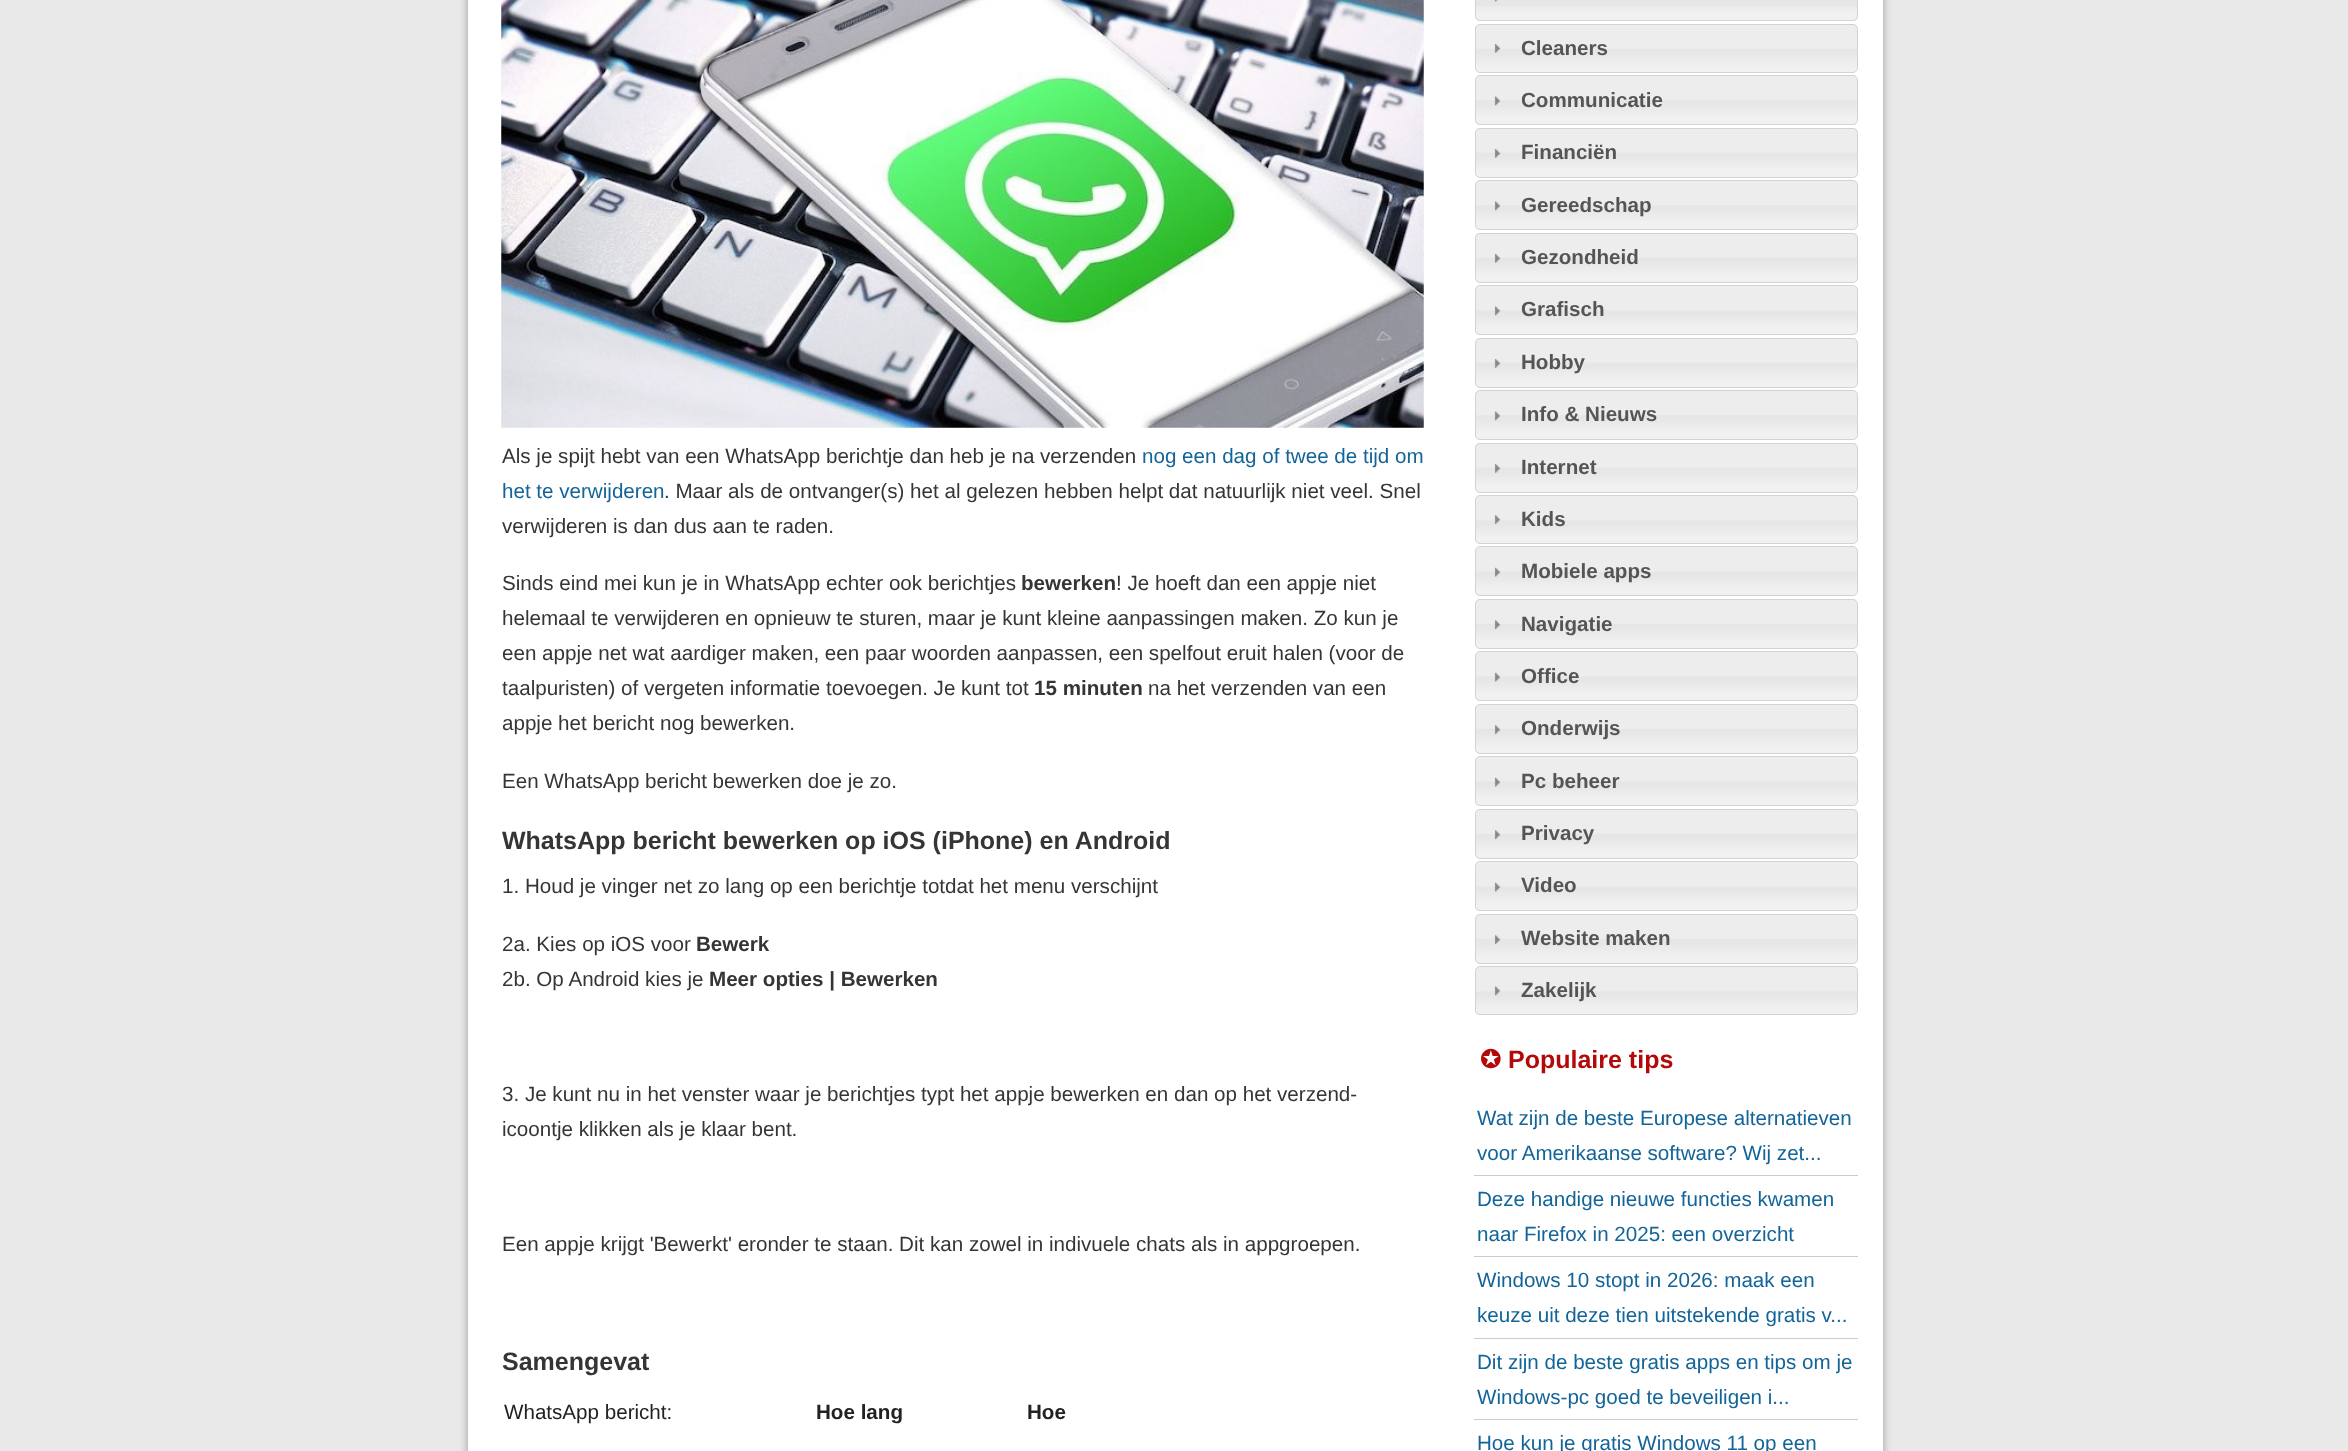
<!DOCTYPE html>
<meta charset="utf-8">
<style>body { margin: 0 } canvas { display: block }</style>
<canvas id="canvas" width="2348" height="1451"></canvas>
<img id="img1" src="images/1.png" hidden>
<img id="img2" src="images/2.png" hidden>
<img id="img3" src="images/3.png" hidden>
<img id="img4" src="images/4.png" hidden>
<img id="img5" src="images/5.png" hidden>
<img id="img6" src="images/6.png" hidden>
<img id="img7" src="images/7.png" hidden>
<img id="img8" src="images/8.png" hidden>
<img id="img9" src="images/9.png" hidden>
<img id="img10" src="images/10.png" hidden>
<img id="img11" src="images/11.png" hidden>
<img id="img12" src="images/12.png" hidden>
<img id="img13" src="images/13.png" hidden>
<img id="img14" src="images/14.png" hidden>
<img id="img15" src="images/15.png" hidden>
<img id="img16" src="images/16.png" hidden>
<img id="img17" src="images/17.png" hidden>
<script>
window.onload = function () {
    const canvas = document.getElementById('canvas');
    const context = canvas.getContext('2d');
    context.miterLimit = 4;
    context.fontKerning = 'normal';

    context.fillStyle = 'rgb(233, 233, 233)';
    context.fillRect(0, 0, 2348, 1451);
    context.fillStyle = 'rgb(153, 153, 153)';
    context.filter = 'blur(4px)';
    context.beginPath();
    context.rect(468, -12, 1415, 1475);
    context.fill();
    context.filter = 'none';
    context.fillStyle = 'rgb(255, 255, 255)';
    context.fillRect(468, 0, 1415, 1451);
    context.drawImage(document.getElementById('img1'), 501, 0, 923, 428);
    context.fillStyle = 'rgb(230, 230, 230)';
    context.beginPath();
    context.roundRect(1475, -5, 383, 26, 5);
    context.fill();
    context.drawImage(document.getElementById('img2'), 1475, 6, 382, 15);
    context.beginPath();
    context.roundRect(1475.5, -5.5, 382, 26, 4.5);
    context.strokeStyle = 'rgb(211, 211, 211)';
    context.stroke();
    context.drawImage(document.getElementById('img3'), 1494, 0, 4, 2);
    context.drawImage(document.getElementById('img4'), 1475, 24, 382, 49);
    context.beginPath();
    context.roundRect(1475.5, 24.5, 382, 48, 4.5);
    context.stroke();
    context.drawImage(document.getElementById('img5'), 1494, 43, 7, 10);
    context.drawImage(document.getElementById('img6'), 1475, 76, 382, 49);
    context.beginPath();
    context.roundRect(1475.5, 75.5, 382, 49, 4.5);
    context.stroke();
    context.drawImage(document.getElementById('img7'), 1494, 96, 7, 10);
    context.drawImage(document.getElementById('img8'), 1475, 128, 382, 50);
    context.beginPath();
    context.roundRect(1475.5, 128.5, 382, 49, 4.5);
    context.stroke();
    context.drawImage(document.getElementById('img9'), 1494, 148, 7, 10);
    context.drawImage(document.getElementById('img6'), 1475, 181, 382, 49);
    context.beginPath();
    context.roundRect(1475.5, 180.5, 382, 49, 4.5);
    context.stroke();
    context.drawImage(document.getElementById('img7'), 1494, 201, 7, 10);
    context.drawImage(document.getElementById('img8'), 1475, 233, 382, 50);
    context.beginPath();
    context.roundRect(1475.5, 233.5, 382, 49, 4.5);
    context.stroke();
    context.drawImage(document.getElementById('img9'), 1494, 253, 7, 10);
    context.drawImage(document.getElementById('img6'), 1475, 286, 382, 49);
    context.beginPath();
    context.roundRect(1475.5, 285.5, 382, 49, 4.5);
    context.stroke();
    context.drawImage(document.getElementById('img7'), 1494, 306, 7, 10);
    context.drawImage(document.getElementById('img8'), 1475, 338, 382, 50);
    context.beginPath();
    context.roundRect(1475.5, 338.5, 382, 49, 4.5);
    context.stroke();
    context.drawImage(document.getElementById('img9'), 1494, 358, 7, 10);
    context.drawImage(document.getElementById('img6'), 1475, 391, 382, 49);
    context.beginPath();
    context.roundRect(1475.5, 390.5, 382, 49, 4.5);
    context.stroke();
    context.drawImage(document.getElementById('img7'), 1494, 411, 7, 10);
    context.drawImage(document.getElementById('img8'), 1475, 443, 382, 50);
    context.beginPath();
    context.roundRect(1475.5, 443.5, 382, 49, 4.5);
    context.stroke();
    context.drawImage(document.getElementById('img9'), 1494, 463, 7, 10);
    context.drawImage(document.getElementById('img10'), 1475, 496, 382, 48);
    context.beginPath();
    context.roundRect(1475.5, 495.5, 382, 48, 4.5);
    context.stroke();
    context.drawImage(document.getElementById('img11'), 1494, 515, 7, 10);
    context.drawImage(document.getElementById('img12'), 1475, 547, 382, 49);
    context.beginPath();
    context.roundRect(1475.5, 546.5, 382, 49, 4.5);
    context.stroke();
    context.drawImage(document.getElementById('img13'), 1494, 567, 7, 10);
    context.drawImage(document.getElementById('img14'), 1475, 599, 382, 50);
    context.beginPath();
    context.roundRect(1475.5, 599.5, 382, 49, 4.5);
    context.stroke();
    context.drawImage(document.getElementById('img15'), 1494, 620, 7, 10);
    context.drawImage(document.getElementById('img12'), 1475, 652, 382, 49);
    context.beginPath();
    context.roundRect(1475.5, 651.5, 382, 49, 4.5);
    context.stroke();
    context.drawImage(document.getElementById('img13'), 1494, 672, 7, 10);
    context.drawImage(document.getElementById('img14'), 1475, 704, 382, 50);
    context.beginPath();
    context.roundRect(1475.5, 704.5, 382, 49, 4.5);
    context.stroke();
    context.drawImage(document.getElementById('img15'), 1494, 725, 7, 10);
    context.drawImage(document.getElementById('img12'), 1475, 757, 382, 49);
    context.beginPath();
    context.roundRect(1475.5, 756.5, 382, 49, 4.5);
    context.stroke();
    context.drawImage(document.getElementById('img13'), 1494, 777, 7, 10);
    context.drawImage(document.getElementById('img14'), 1475, 809, 382, 50);
    context.beginPath();
    context.roundRect(1475.5, 809.5, 382, 49, 4.5);
    context.stroke();
    context.drawImage(document.getElementById('img15'), 1494, 830, 7, 10);
    context.drawImage(document.getElementById('img12'), 1475, 862, 382, 49);
    context.beginPath();
    context.roundRect(1475.5, 861.5, 382, 49, 4.5);
    context.stroke();
    context.drawImage(document.getElementById('img13'), 1494, 882, 7, 10);
    context.drawImage(document.getElementById('img14'), 1475, 914, 382, 50);
    context.beginPath();
    context.roundRect(1475.5, 914.5, 382, 49, 4.5);
    context.stroke();
    context.drawImage(document.getElementById('img15'), 1494, 935, 7, 10);
    context.drawImage(document.getElementById('img16'), 1475, 967, 382, 48);
    context.beginPath();
    context.roundRect(1475.5, 966.5, 382, 48, 4.5);
    context.stroke();
    context.drawImage(document.getElementById('img17'), 1494, 986, 7, 10);
    context.fillStyle = 'rgb(204, 204, 204)';
    context.fillRect(1474, 1175, 384, 1);
    context.fillRect(1474, 1256, 384, 1);
    context.fillRect(1474, 1338, 384, 1);
    context.fillRect(1474, 1419, 384, 1);
    context.font = '20.6px Liberation Sans';
    context.fillStyle = 'rgb(53, 53, 53)';
    context.fillText('Als je spijt hebt van een WhatsApp berichtje dan heb je na verzenden', 502, 463);
    context.fillStyle = 'rgb(18, 100, 153)';
    context.fillText('nog een dag of twee de tijd om', 1142, 463);
    context.fillText('het te verwijderen', 502, 498);
    context.fillStyle = 'rgb(53, 53, 53)';
    context.fillText('. Maar als de ontvanger(s) het al gelezen hebben helpt dat natuurlijk niet veel. Snel', 664, 498);
    context.fillText('verwijderen is dan dus aan te raden.', 502, 533);
    context.fillText('Sinds eind mei kun je in WhatsApp echter ook berichtjes', 502, 590);
    context.font = 'bold 20.6px Liberation Sans';
    context.fillText('bewerken', 1021, 590);
    context.font = '20.6px Liberation Sans';
    context.fillText('! Je hoeft dan een appje niet', 1116, 590);
    context.fillText('helemaal te verwijderen en opnieuw te sturen, maar je kunt kleine aanpassingen maken. Zo kun je', 502, 625);
    context.fillText('een appje net wat aardiger maken, een paar woorden aanpassen, een spelfout eruit halen (voor de', 502, 660);
    context.fillText('taalpuristen) of vergeten informatie toevoegen. Je kunt tot', 502, 695);
    context.font = 'bold 20.6px Liberation Sans';
    context.fillText('15 minuten', 1034, 695);
    context.font = '20.6px Liberation Sans';
    context.fillText('na het verzenden van een', 1148, 695);
    context.fillText('appje het bericht nog bewerken.', 502, 730);
    context.fillText('Een WhatsApp bericht bewerken doe je zo.', 502, 788);
    context.font = 'bold 25px Liberation Sans';
    context.fillText('WhatsApp bericht bewerken op iOS (iPhone) en Android', 502, 849);
    context.font = '20.6px Liberation Sans';
    context.fillText('1. Houd je vinger net zo lang op een berichtje totdat het menu verschijnt', 502, 893);
    context.fillText('2a. Kies op iOS voor', 502, 951);
    context.font = 'bold 20.6px Liberation Sans';
    context.fillText('Bewerk', 696, 951);
    context.font = '20.6px Liberation Sans';
    context.fillText('2b. Op Android kies je', 502, 986);
    context.font = 'bold 20.6px Liberation Sans';
    context.fillText('Meer opties | Bewerken', 709, 986);
    context.font = '20.6px Liberation Sans';
    context.fillText('3. Je kunt nu in het venster waar je berichtjes typt het appje bewerken en dan op het verzend-', 502, 1101);
    context.fillText('icoontje klikken als je klaar bent.', 502, 1136);
    context.fillText('Een appje krijgt \'Bewerkt\' eronder te staan. Dit kan zowel in indivuele chats als in appgroepen.', 502, 1251);
    context.font = 'bold 25px Liberation Sans';
    context.fillText('Samengevat', 502, 1370);
    context.font = '20.6px Liberation Sans';
    context.fillStyle = 'rgb(34, 34, 34)';
    context.fillText('WhatsApp bericht:', 504, 1419);
    context.font = 'bold 20.6px Liberation Sans';
    context.fillText('Hoe lang', 816, 1419);
    context.fillText('Hoe', 1027, 1419);
    context.fillStyle = 'rgb(85, 85, 85)';
    context.fillText('Cleaners', 1521, 55);
    context.fillText('Communicatie', 1521, 107);
    context.fillText('Financiën', 1521, 159);
    context.fillText('Gereedschap', 1521, 212);
    context.fillText('Gezondheid', 1521, 264);
    context.fillText('Grafisch', 1521, 316);
    context.fillText('Hobby', 1521, 369);
    context.fillText('Info & Nieuws', 1521, 421);
    context.fillText('Internet', 1521, 474);
    context.fillText('Kids', 1521, 526);
    context.fillText('Mobiele apps', 1521, 578);
    context.fillText('Navigatie', 1521, 631);
    context.fillText('Office', 1521, 683);
    context.fillText('Onderwijs', 1521, 735);
    context.fillText('Pc beheer', 1521, 788);
    context.fillText('Privacy', 1521, 840);
    context.fillText('Video', 1521, 892);
    context.fillText('Website maken', 1521, 945);
    context.fillText('Zakelijk', 1521, 997);
    context.font = 'bold 25px DejaVu Sans';
    context.fillStyle = 'rgb(179, 9, 9)';
    context.fillText('✪', 1480, 1068);
    context.font = 'bold 25px Liberation Sans';
    context.fillText('Populaire tips', 1508, 1068);
    context.font = '20.6px Liberation Sans';
    context.fillStyle = 'rgb(18, 100, 153)';
    context.fillText('Wat zijn de beste Europese alternatieven', 1477, 1125);
    context.fillText('voor Amerikaanse software? Wij zet...', 1477, 1160);
    context.fillText('Deze handige nieuwe functies kwamen', 1477, 1206);
    context.fillText('naar Firefox in 2025: een overzicht', 1477, 1241);
    context.fillText('Windows 10 stopt in 2026: maak een', 1477, 1287);
    context.fillText('keuze uit deze tien uitstekende gratis v...', 1477, 1322);
    context.fillText('Dit zijn de beste gratis apps en tips om je', 1477, 1369);
    context.fillText('Windows-pc goed te beveiligen i...', 1477, 1404);
    context.fillText('Hoe kun je gratis Windows 11 op een', 1477, 1450);
};
</script>
